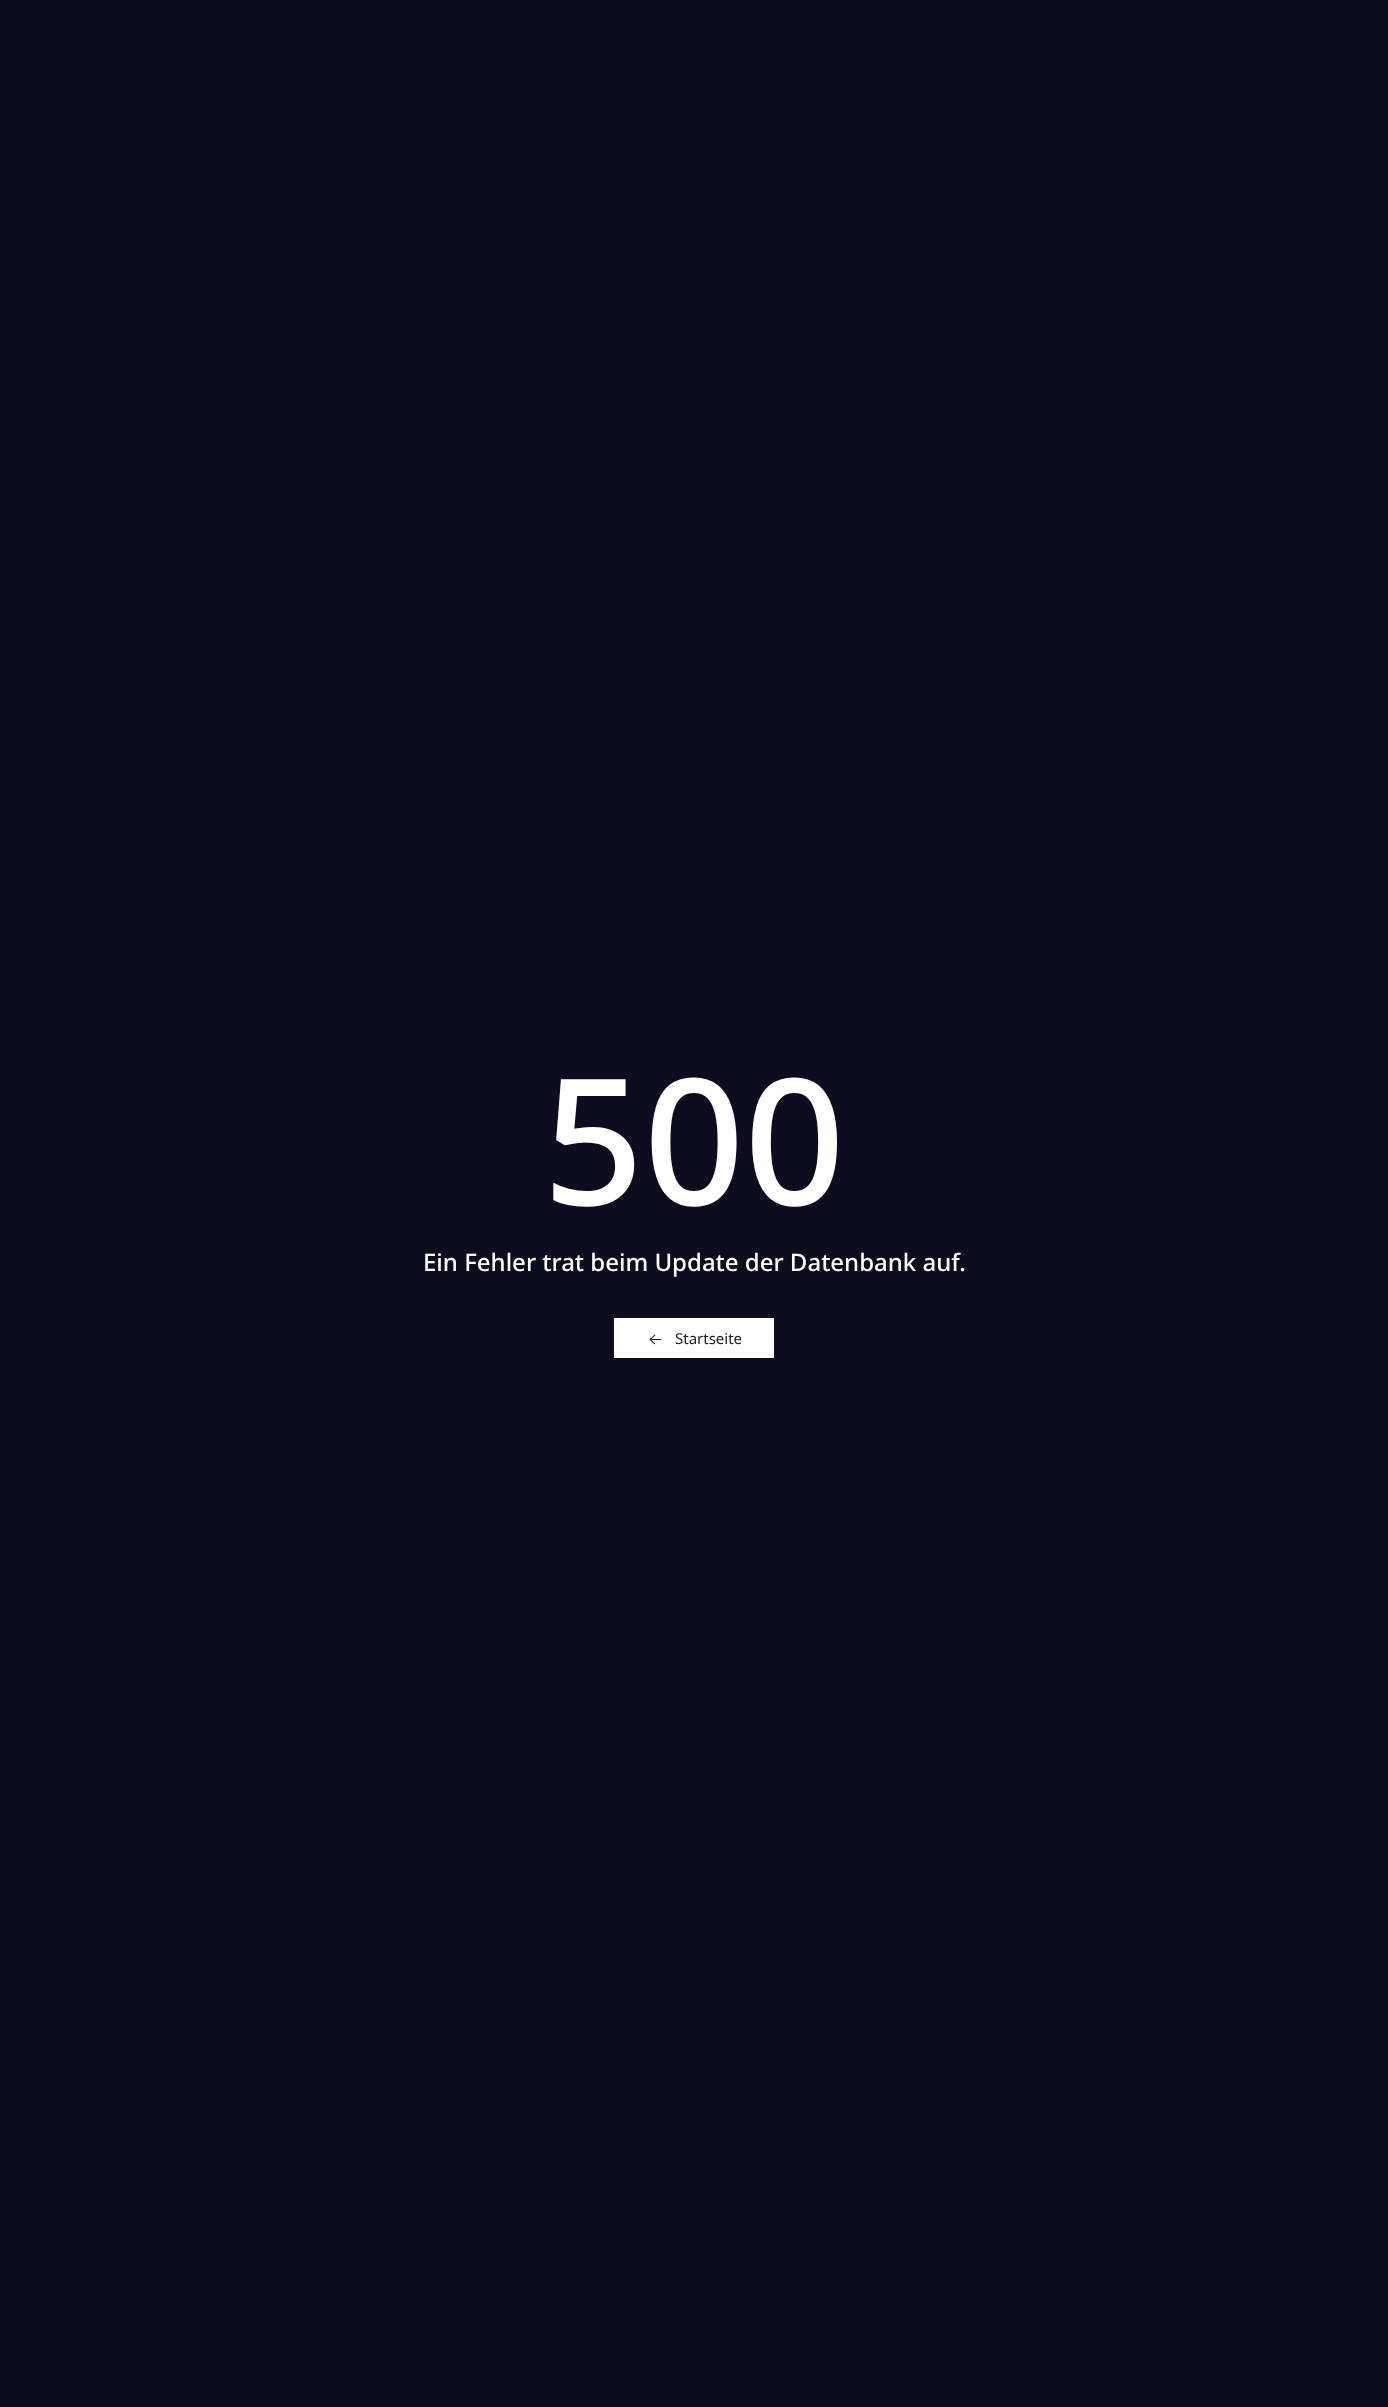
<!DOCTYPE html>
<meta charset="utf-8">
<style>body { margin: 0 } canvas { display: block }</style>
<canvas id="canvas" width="1388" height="2407"></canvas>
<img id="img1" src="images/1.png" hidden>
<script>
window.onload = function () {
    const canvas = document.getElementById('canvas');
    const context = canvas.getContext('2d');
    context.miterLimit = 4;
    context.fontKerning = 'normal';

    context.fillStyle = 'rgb(14, 12, 31)';
    context.fillRect(0, 0, 1388, 2407);
    context.fillStyle = 'rgb(255, 255, 255)';
    context.fillRect(614, 1318, 160, 40);
    context.drawImage(document.getElementById('img1'), 649, 1334, 12, 11);
    context.font = '500 176px Noto Sans';
    context.fillText('500', 543, 1205);
    context.font = '500 24px Noto Sans';
    context.fillText('Ein Fehler trat beim Update der Datenbank auf.', 423, 1271);
    context.font = '15px Noto Sans';
    context.fillStyle = 'rgb(28, 28, 28)';
    context.fillText('Startseite', 675, 1344);
};
</script>
